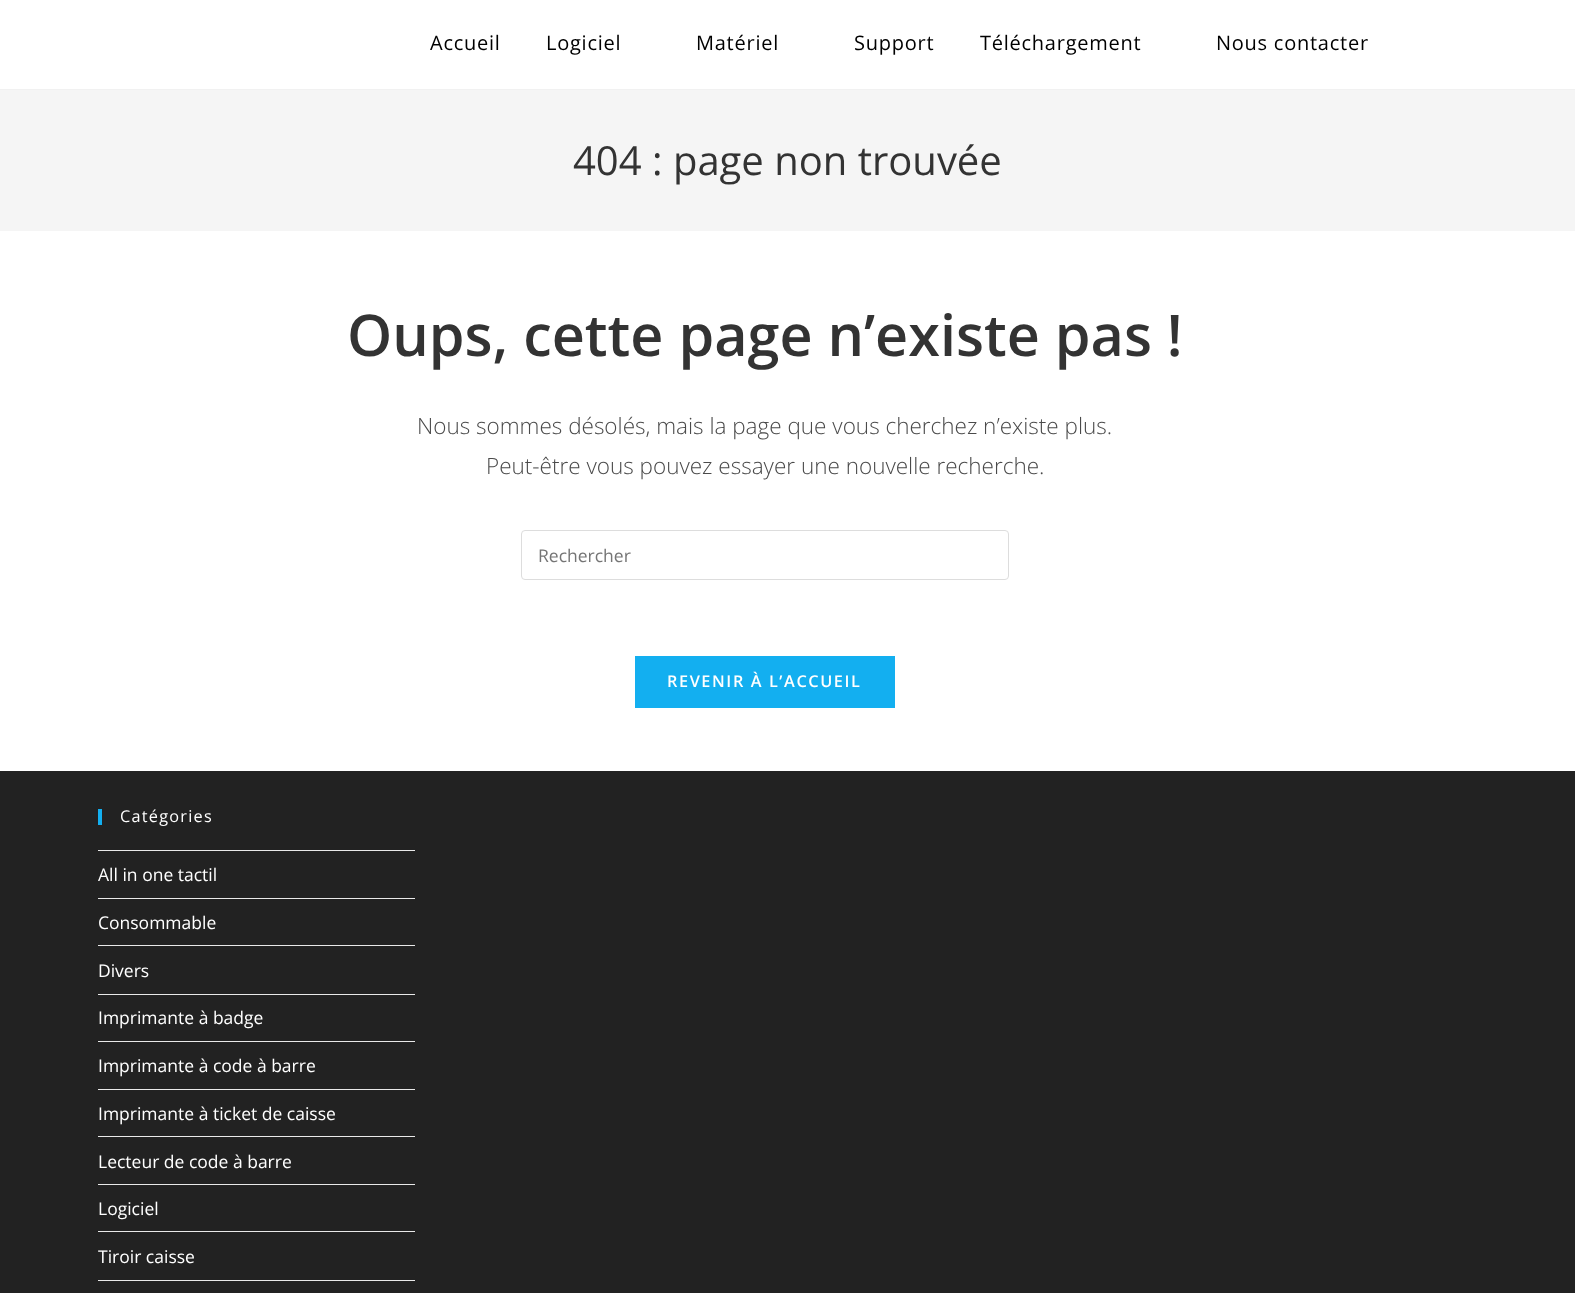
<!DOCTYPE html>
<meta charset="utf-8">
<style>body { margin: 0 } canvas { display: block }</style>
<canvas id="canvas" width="1575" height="1293"></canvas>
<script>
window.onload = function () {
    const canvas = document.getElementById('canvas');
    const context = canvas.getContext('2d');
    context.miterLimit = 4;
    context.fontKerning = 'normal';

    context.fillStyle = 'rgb(255, 255, 255)';
    context.fillRect(0, 0, 1575, 1293);
    context.fillStyle = 'rgb(241, 241, 241)';
    context.fillRect(0, 89, 1575, 1);
    context.fillStyle = 'rgb(245, 245, 245)';
    context.fillRect(0, 90, 1575, 141);
    context.beginPath();
    context.roundRect(521.5, 530.5, 487, 49, 3.5);
    context.strokeStyle = 'rgb(221, 221, 221)';
    context.stroke();
    context.fillStyle = 'rgb(19, 175, 240)';
    context.fillRect(635, 656, 260, 52);
    context.fillStyle = 'rgb(34, 34, 34)';
    context.fillRect(0, 771, 1575, 522);
    context.fillStyle = 'rgb(19, 175, 240)';
    context.fillRect(98, 809, 4, 16);
    context.fillStyle = 'rgb(233, 233, 233)';
    context.fillRect(98, 850, 317, 1);
    context.fillRect(98, 898, 317, 1);
    context.fillRect(98, 945, 317, 1);
    context.fillRect(98, 994, 317, 1);
    context.fillRect(98, 1041, 317, 1);
    context.fillRect(98, 1089, 317, 1);
    context.fillRect(98, 1136, 317, 1);
    context.fillRect(98, 1184, 317, 1);
    context.fillRect(98, 1231, 317, 1);
    context.fillRect(98, 1280, 317, 1);
    context.letterSpacing = '0.75px';
    context.font = '20px Open Sans';
    context.fillStyle = 'rgb(0, 0, 0)';
    context.fillText('Accueil', 430, 50);
    context.fillText('Logiciel', 546, 50);
    context.fillText('Matériel', 696, 50);
    context.fillText('Support', 854, 50);
    context.fillText('Téléchargement', 980, 50);
    context.fillText('Nous contacter', 1216, 50);
    context.letterSpacing = '0px';
    context.font = '40px Open Sans';
    context.fillStyle = 'rgb(51, 51, 51)';
    context.fillText('404 : page non trouvée', 573, 175);
    context.font = '600 57.5px Open Sans';
    context.fillText('Oups, cette page n’existe pas !', 347, 356);
    context.font = '300 22.5px Open Sans';
    context.fillStyle = 'rgb(74, 74, 74)';
    context.fillText('Nous sommes désolés, mais la page que vous cherchez n’existe plus.', 417, 434);
    context.fillText('Peut-être vous pouvez essayer une nouvelle recherche.', 486, 474);
    context.font = '17.5px Open Sans';
    context.fillStyle = 'rgb(117, 117, 117)';
    context.fillText('Rechercher', 538, 562);
    context.letterSpacing = '1.6px';
    context.font = '600 16.25px Open Sans';
    context.fillStyle = 'rgb(255, 255, 255)';
    context.fillText('REVENIR À L’ACCUEIL', 667, 687);
    context.letterSpacing = '1.25px';
    context.font = '16.25px Open Sans';
    context.fillText('Catégories', 120, 822);
    context.letterSpacing = '0px';
    context.font = '17.5px Open Sans';
    context.fillText('All in one tactil', 98, 881);
    context.fillText('Consommable', 98, 929);
    context.fillText('Divers', 98, 977);
    context.fillText('Imprimante à badge', 98, 1024);
    context.fillText('Imprimante à code à barre', 98, 1072);
    context.fillText('Imprimante à ticket de caisse', 98, 1120);
    context.fillText('Lecteur de code à barre', 98, 1168);
    context.fillText('Logiciel', 98, 1215);
    context.fillText('Tiroir caisse', 98, 1263);
};
</script>
